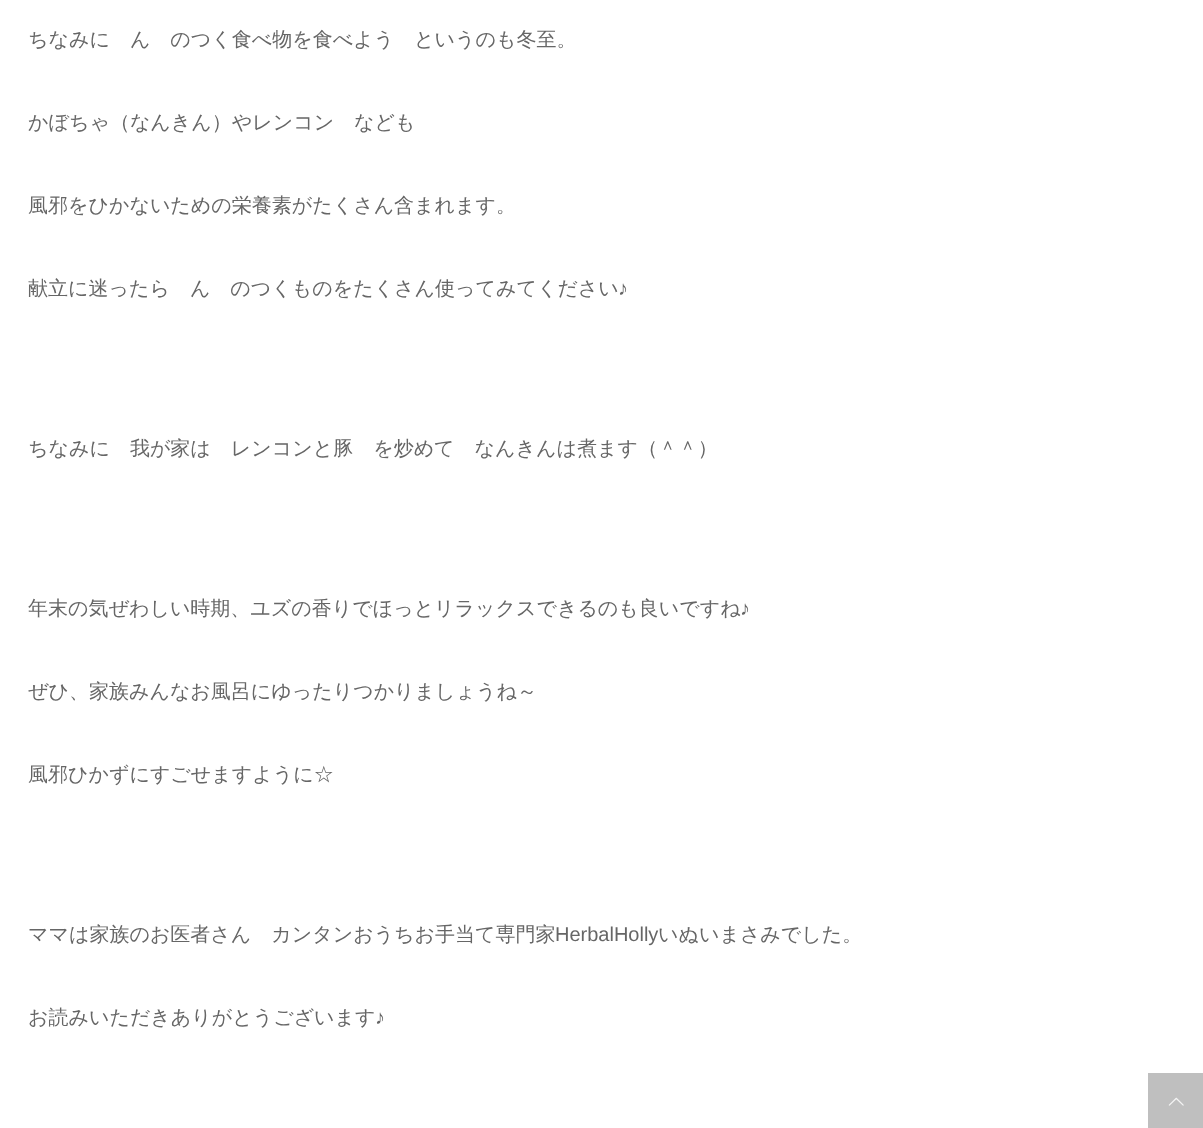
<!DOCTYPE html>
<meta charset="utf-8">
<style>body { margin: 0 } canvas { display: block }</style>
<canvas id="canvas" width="1203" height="1128"></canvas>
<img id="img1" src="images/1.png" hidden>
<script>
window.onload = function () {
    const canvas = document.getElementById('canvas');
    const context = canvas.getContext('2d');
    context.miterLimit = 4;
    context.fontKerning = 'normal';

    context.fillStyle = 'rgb(255, 255, 255)';
    context.fillRect(0, 0, 1203, 1128);
    context.fillStyle = 'rgb(191, 191, 191)';
    context.fillRect(1148, 1073, 55, 55);
    context.drawImage(document.getElementById('img1'), 1168, 1097, 16, 9);
    context.font = '500 20px WenQuanYi Zen Hei';
    context.fillStyle = 'rgb(102, 102, 102)';
    context.fillText('ちなみに　ん　のつく食べ物を食べよう　というのも冬至。', 28, 46);
    context.fillText('かぼちゃ（なんきん）やレンコン　なども', 28, 129);
    context.fillText('風邪をひかないための栄養素がたくさん含まれます。', 28, 212);
    context.fillText('献立に迷ったら　ん　のつくものをたくさん使ってみてください', 28, 295);
    context.font = '20px Liberation Sans';
    context.fillText('♪', 618, 295);
    context.font = '500 20px WenQuanYi Zen Hei';
    context.fillText('ちなみに　我が家は　レンコンと豚　を炒めて　なんきんは煮ます（＾＾）', 28, 455);
    context.fillText('年末の気ぜわしい時期、ユズの香りでほっとリラックスできるのも良いですね', 28, 615);
    context.font = '20px Liberation Sans';
    context.fillText('♪', 740, 615);
    context.font = '500 20px WenQuanYi Zen Hei';
    context.fillText('ぜひ、家族みんなお風呂にゆったりつかりましょうね～', 28, 698);
    context.fillText('風邪ひかずにすごせますように☆', 28, 781);
    context.fillText('ママは家族のお医者さん　カンタンおうちお手当て専門家', 28, 941);
    context.font = '20px Liberation Sans';
    context.fillText('HerbalHolly', 555, 941);
    context.font = '500 20px WenQuanYi Zen Hei';
    context.fillText('いぬいまさみでした。', 658, 941);
    context.fillText('お読みいただきありがとうございます', 28, 1024);
    context.font = '20px Liberation Sans';
    context.fillText('♪', 375, 1024);
};
</script>
